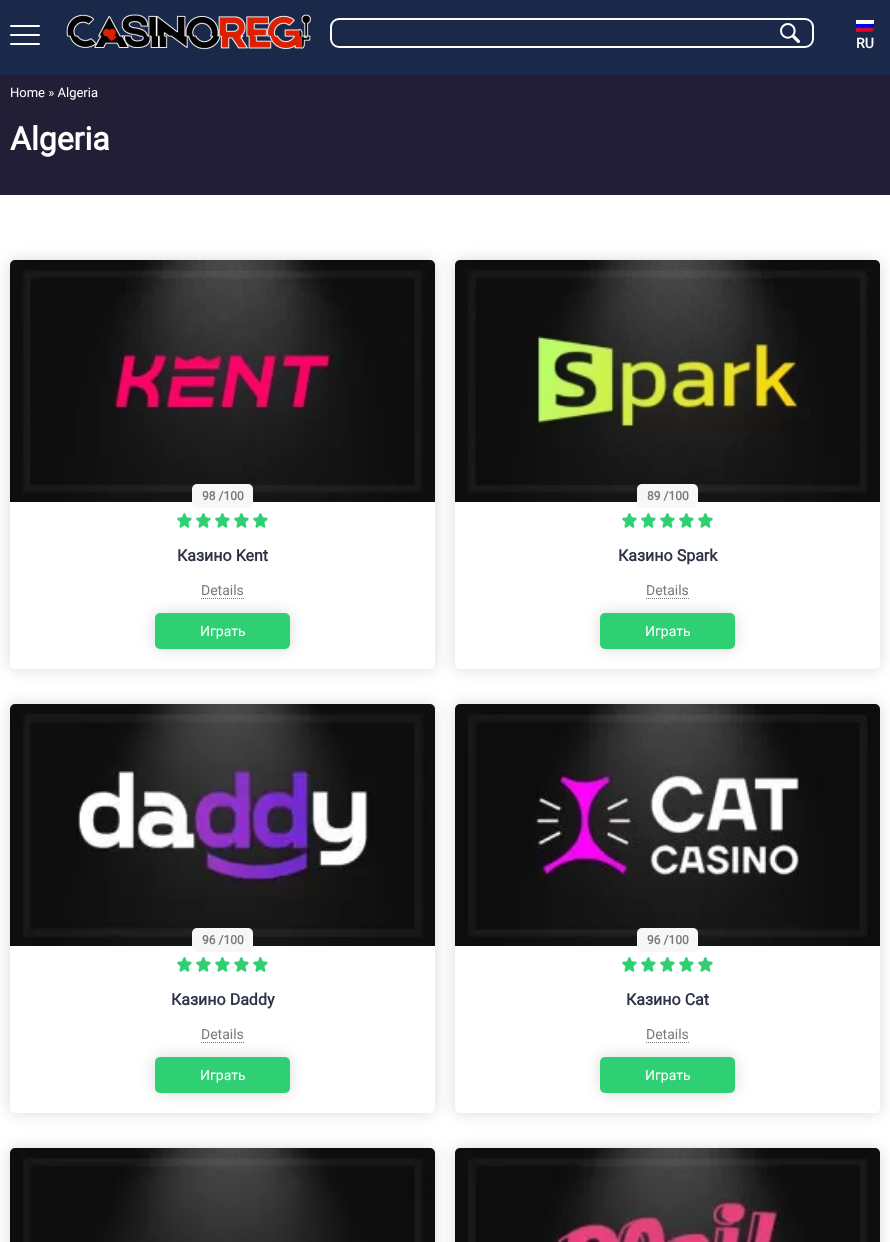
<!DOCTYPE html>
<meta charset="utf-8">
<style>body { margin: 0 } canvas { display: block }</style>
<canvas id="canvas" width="890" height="1242"></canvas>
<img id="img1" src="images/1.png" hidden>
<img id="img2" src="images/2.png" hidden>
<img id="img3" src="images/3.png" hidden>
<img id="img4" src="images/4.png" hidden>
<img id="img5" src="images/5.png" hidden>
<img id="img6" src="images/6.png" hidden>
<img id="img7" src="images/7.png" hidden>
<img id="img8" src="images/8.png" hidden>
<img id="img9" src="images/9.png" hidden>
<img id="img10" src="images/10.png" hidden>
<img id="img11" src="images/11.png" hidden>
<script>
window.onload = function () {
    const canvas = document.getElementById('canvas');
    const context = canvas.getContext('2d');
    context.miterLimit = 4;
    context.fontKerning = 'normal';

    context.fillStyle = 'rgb(255, 255, 255)';
    context.fillRect(0, 0, 890, 1242);
    context.fillStyle = 'rgb(26, 41, 73)';
    context.fillRect(0, 0, 890, 75);
    context.fillStyle = 'rgb(255, 255, 255)';
    context.beginPath();
    context.roundRect(10, 25, 30, 2, 1);
    context.fill();
    context.beginPath();
    context.roundRect(10, 34, 30, 2, 1);
    context.fill();
    context.beginPath();
    context.roundRect(10, 43, 30, 2, 1);
    context.fill();
    context.drawImage(document.getElementById('img1'), 66, 14, 245, 36);
    context.beginPath();
    context.roundRect(331, 19, 482, 28, 8);
    context.strokeStyle = 'rgb(255, 255, 255)';
    context.lineWidth = 2;
    context.stroke();
    context.drawImage(document.getElementById('img2'), 780, 23, 20, 20);
    context.drawImage(document.getElementById('img3'), 856, 20, 18, 12);
    context.fillStyle = 'rgb(33, 30, 53)';
    context.fillRect(0, 75, 890, 120);
    context.fillStyle = 'rgba(0, 0, 0, 0.15)';
    context.filter = 'blur(7.5px)';
    context.beginPath();
    context.roundRect(10, 260, 425, 409, 5);
    context.fill();
    context.filter = 'none';
    context.fillStyle = 'rgb(255, 255, 255)';
    context.beginPath();
    context.roundRect(10, 260, 425, 409, 5);
    context.fill();
    context.drawImage(document.getElementById('img4'), 10, 260, 425, 242);
    context.fillStyle = 'rgb(247, 247, 247)';
    context.beginPath();
    context.roundRect(192, 484, 61, 24, 5);
    context.fill();
    context.drawImage(document.getElementById('img5'), 177, 513, 15, 15);
    context.drawImage(document.getElementById('img5'), 196, 513, 15, 15);
    context.drawImage(document.getElementById('img5'), 215, 513, 15, 15);
    context.drawImage(document.getElementById('img5'), 234, 513, 15, 15);
    context.drawImage(document.getElementById('img6'), 253, 513, 15, 15);
    context.beginPath();
    context.moveTo(201, 598.5);
    context.lineTo(244, 598.5);
    context.strokeStyle = 'rgb(121, 121, 121)';
    context.lineWidth = 1;
    context.setLineDash([1, 1]);
    context.stroke();
    context.fillStyle = 'rgba(0, 0, 0, 0.15)';
    context.filter = 'blur(7.5px)';
    context.beginPath();
    context.roundRect(155, 613, 135, 36, 5);
    context.fill();
    context.filter = 'none';
    context.fillStyle = 'rgb(47, 207, 115)';
    context.beginPath();
    context.roundRect(155, 613, 135, 36, 5);
    context.fill();
    context.fillStyle = 'rgba(0, 0, 0, 0.15)';
    context.filter = 'blur(7.5px)';
    context.beginPath();
    context.roundRect(455, 260, 425, 409, 5);
    context.fill();
    context.filter = 'none';
    context.fillStyle = 'rgb(255, 255, 255)';
    context.beginPath();
    context.roundRect(455, 260, 425, 409, 5);
    context.fill();
    context.drawImage(document.getElementById('img7'), 455, 260, 425, 242);
    context.fillStyle = 'rgb(247, 247, 247)';
    context.beginPath();
    context.roundRect(637, 484, 61, 24, 5);
    context.fill();
    context.drawImage(document.getElementById('img5'), 622, 513, 15, 15);
    context.drawImage(document.getElementById('img5'), 641, 513, 15, 15);
    context.drawImage(document.getElementById('img5'), 660, 513, 15, 15);
    context.drawImage(document.getElementById('img5'), 679, 513, 15, 15);
    context.drawImage(document.getElementById('img5'), 698, 513, 15, 15);
    context.beginPath();
    context.moveTo(646, 598.5);
    context.lineTo(689, 598.5);
    context.stroke();
    context.fillStyle = 'rgba(0, 0, 0, 0.15)';
    context.filter = 'blur(7.5px)';
    context.beginPath();
    context.roundRect(600, 613, 135, 36, 5);
    context.fill();
    context.filter = 'none';
    context.fillStyle = 'rgb(47, 207, 115)';
    context.beginPath();
    context.roundRect(600, 613, 135, 36, 5);
    context.fill();
    context.fillStyle = 'rgba(0, 0, 0, 0.15)';
    context.filter = 'blur(7.5px)';
    context.beginPath();
    context.roundRect(10, 704, 425, 409, 5);
    context.fill();
    context.filter = 'none';
    context.fillStyle = 'rgb(255, 255, 255)';
    context.beginPath();
    context.roundRect(10, 704, 425, 409, 5);
    context.fill();
    context.drawImage(document.getElementById('img8'), 10, 704, 425, 242);
    context.fillStyle = 'rgb(247, 247, 247)';
    context.beginPath();
    context.roundRect(192, 928, 61, 24, 5);
    context.fill();
    context.drawImage(document.getElementById('img5'), 177, 957, 15, 15);
    context.drawImage(document.getElementById('img5'), 196, 957, 15, 15);
    context.drawImage(document.getElementById('img5'), 215, 957, 15, 15);
    context.drawImage(document.getElementById('img5'), 234, 957, 15, 15);
    context.drawImage(document.getElementById('img6'), 253, 957, 15, 15);
    context.beginPath();
    context.moveTo(201, 1042.5);
    context.lineTo(244, 1042.5);
    context.stroke();
    context.fillStyle = 'rgba(0, 0, 0, 0.15)';
    context.filter = 'blur(7.5px)';
    context.beginPath();
    context.roundRect(155, 1057, 135, 36, 5);
    context.fill();
    context.filter = 'none';
    context.fillStyle = 'rgb(47, 207, 115)';
    context.beginPath();
    context.roundRect(155, 1057, 135, 36, 5);
    context.fill();
    context.fillStyle = 'rgba(0, 0, 0, 0.15)';
    context.filter = 'blur(7.5px)';
    context.beginPath();
    context.roundRect(455, 704, 425, 409, 5);
    context.fill();
    context.filter = 'none';
    context.fillStyle = 'rgb(255, 255, 255)';
    context.beginPath();
    context.roundRect(455, 704, 425, 409, 5);
    context.fill();
    context.drawImage(document.getElementById('img9'), 455, 704, 425, 242);
    context.fillStyle = 'rgb(247, 247, 247)';
    context.beginPath();
    context.roundRect(637, 928, 61, 24, 5);
    context.fill();
    context.drawImage(document.getElementById('img5'), 622, 957, 15, 15);
    context.drawImage(document.getElementById('img5'), 641, 957, 15, 15);
    context.drawImage(document.getElementById('img5'), 660, 957, 15, 15);
    context.drawImage(document.getElementById('img5'), 679, 957, 15, 15);
    context.drawImage(document.getElementById('img5'), 698, 957, 15, 15);
    context.beginPath();
    context.moveTo(646, 1042.5);
    context.lineTo(689, 1042.5);
    context.stroke();
    context.fillStyle = 'rgba(0, 0, 0, 0.15)';
    context.filter = 'blur(7.5px)';
    context.beginPath();
    context.roundRect(600, 1057, 135, 36, 5);
    context.fill();
    context.filter = 'none';
    context.fillStyle = 'rgb(47, 207, 115)';
    context.beginPath();
    context.roundRect(600, 1057, 135, 36, 5);
    context.fill();
    context.fillStyle = 'rgba(0, 0, 0, 0.15)';
    context.filter = 'blur(7.5px)';
    context.beginPath();
    context.roundRect(10, 1148, 425, 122, 5);
    context.fill();
    context.filter = 'none';
    context.drawImage(document.getElementById('img10'), 10, 1148, 425, 94);
    context.filter = 'blur(7.5px)';
    context.beginPath();
    context.roundRect(455, 1148, 425, 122, 5);
    context.fill();
    context.filter = 'none';
    context.drawImage(document.getElementById('img11'), 455, 1148, 425, 94);
    context.font = 'bold 14px Roboto';
    context.fillStyle = 'rgb(255, 255, 255)';
    context.fillText('RU', 856, 48);
    context.font = '13px Roboto';
    context.fillText('Home » Algeria', 10, 97);
    context.font = 'bold 32px Roboto';
    context.fillText('Algeria', 10, 150);
    context.font = 'bold 12px Roboto';
    context.fillStyle = 'rgb(121, 121, 121)';
    context.fillText('98 /100', 202, 500);
    context.font = 'bold 16px Roboto';
    context.fillStyle = 'rgb(46, 50, 70)';
    context.fillText('Казино Kent', 177, 561);
    context.font = '14px Roboto';
    context.fillStyle = 'rgb(121, 121, 121)';
    context.fillText('Details', 201, 595);
    context.fillStyle = 'rgb(255, 255, 255)';
    context.fillText('Играть', 200, 636);
    context.font = 'bold 12px Roboto';
    context.fillStyle = 'rgb(121, 121, 121)';
    context.fillText('89 /100', 647, 500);
    context.font = 'bold 16px Roboto';
    context.fillStyle = 'rgb(46, 50, 70)';
    context.fillText('Казино Spark', 618, 561);
    context.font = '14px Roboto';
    context.fillStyle = 'rgb(121, 121, 121)';
    context.fillText('Details', 646, 595);
    context.fillStyle = 'rgb(255, 255, 255)';
    context.fillText('Играть', 645, 636);
    context.font = 'bold 12px Roboto';
    context.fillStyle = 'rgb(121, 121, 121)';
    context.fillText('96 /100', 202, 944);
    context.font = 'bold 16px Roboto';
    context.fillStyle = 'rgb(46, 50, 70)';
    context.fillText('Казино Daddy', 171, 1005);
    context.font = '14px Roboto';
    context.fillStyle = 'rgb(121, 121, 121)';
    context.fillText('Details', 201, 1039);
    context.fillStyle = 'rgb(255, 255, 255)';
    context.fillText('Играть', 200, 1080);
    context.font = 'bold 12px Roboto';
    context.fillStyle = 'rgb(121, 121, 121)';
    context.fillText('96 /100', 647, 944);
    context.font = 'bold 16px Roboto';
    context.fillStyle = 'rgb(46, 50, 70)';
    context.fillText('Казино Cat', 626, 1005);
    context.font = '14px Roboto';
    context.fillStyle = 'rgb(121, 121, 121)';
    context.fillText('Details', 646, 1039);
    context.fillStyle = 'rgb(255, 255, 255)';
    context.fillText('Играть', 645, 1080);
};
</script>
